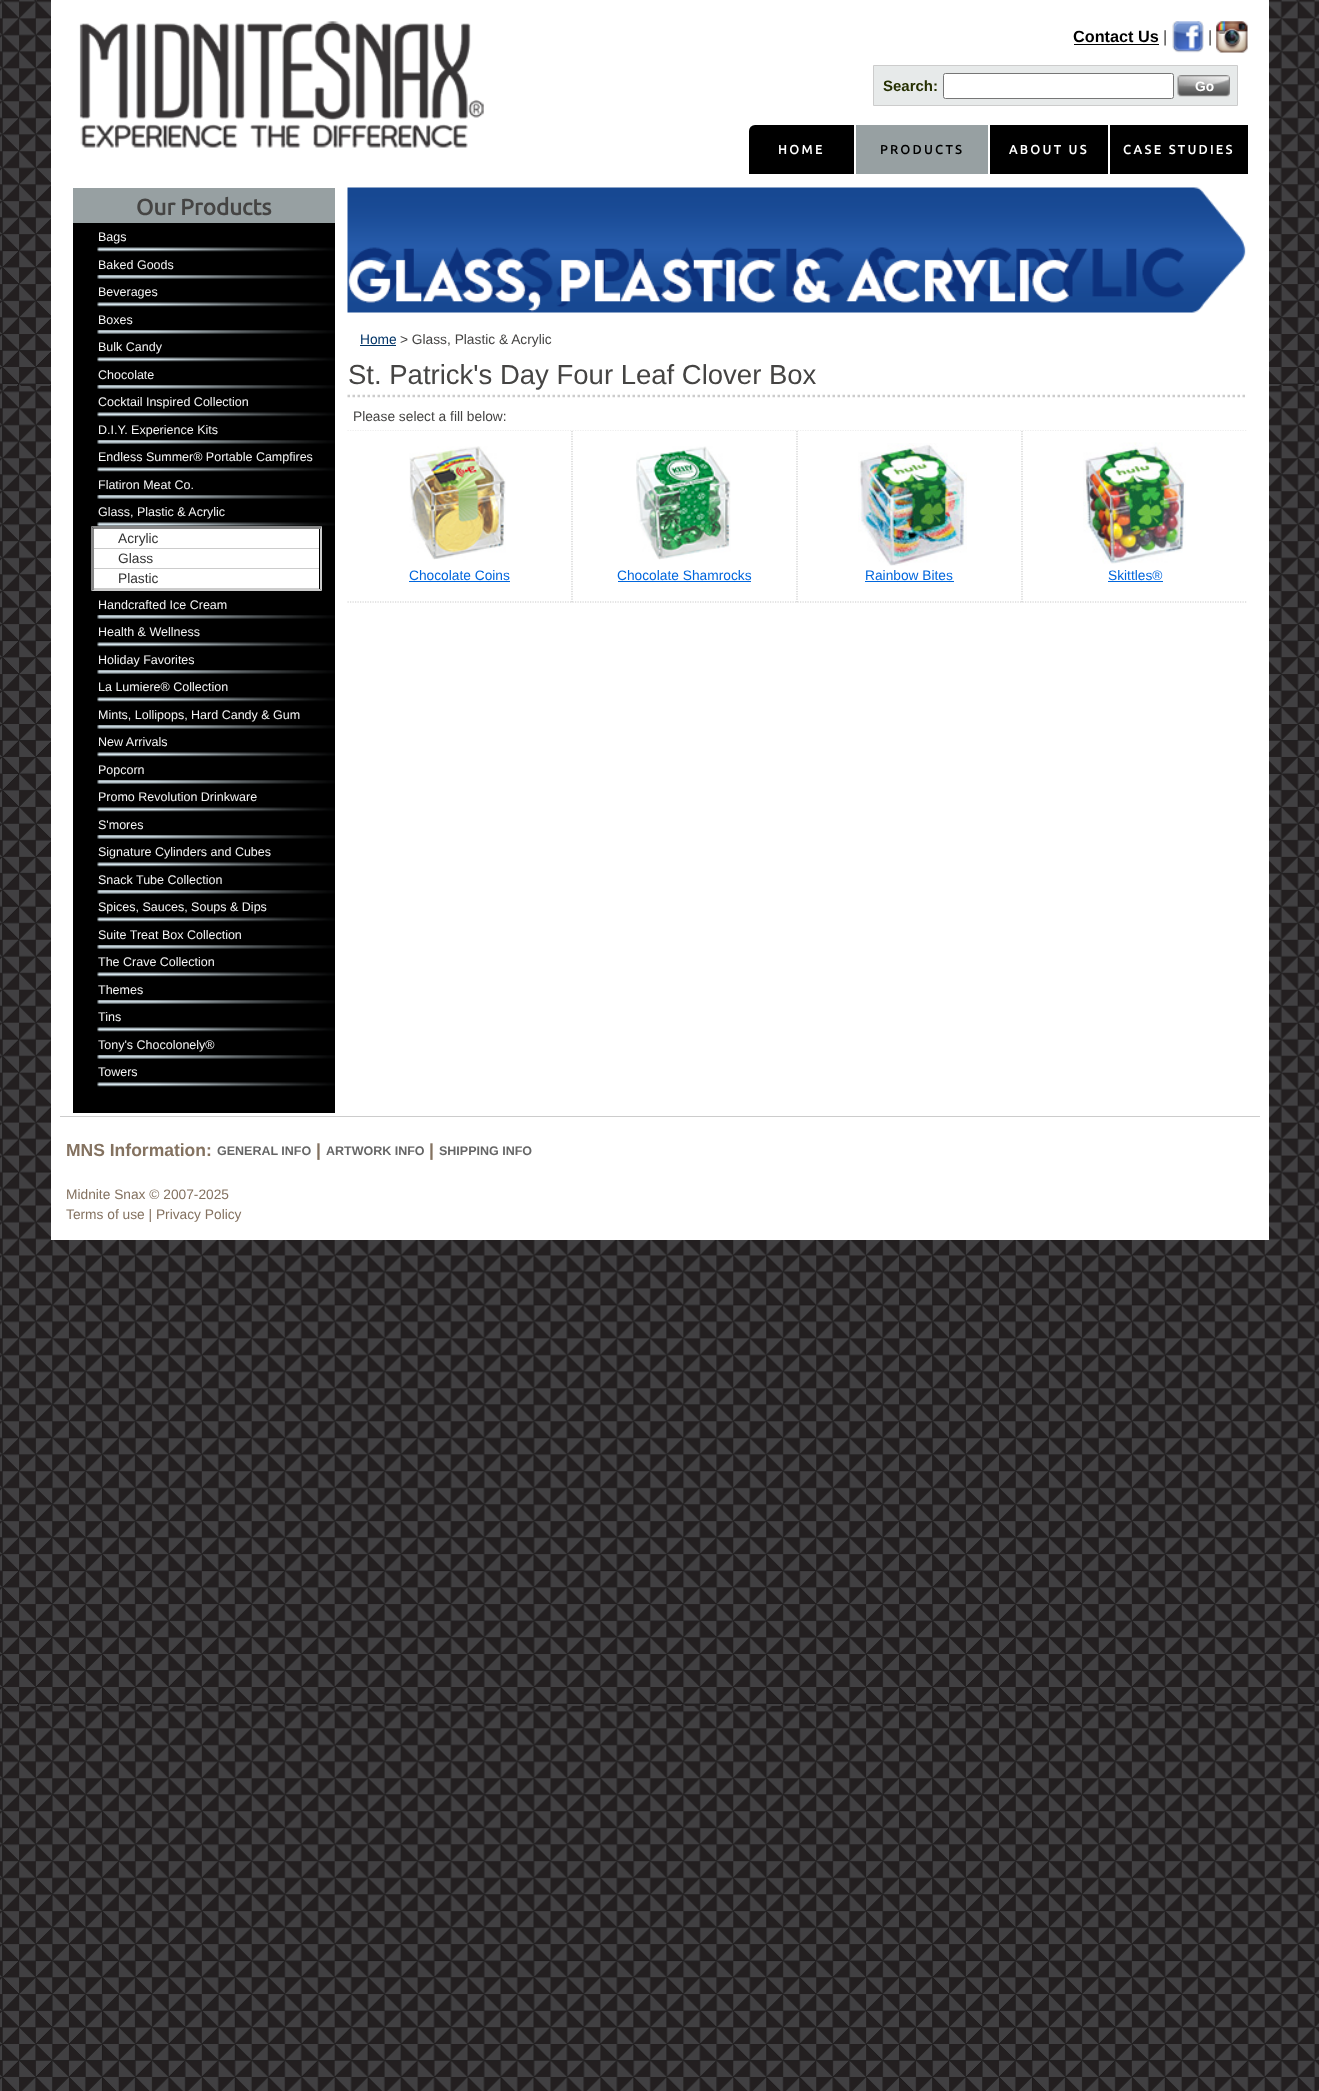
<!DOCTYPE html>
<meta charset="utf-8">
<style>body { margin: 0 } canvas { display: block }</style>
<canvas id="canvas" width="1319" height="2091"></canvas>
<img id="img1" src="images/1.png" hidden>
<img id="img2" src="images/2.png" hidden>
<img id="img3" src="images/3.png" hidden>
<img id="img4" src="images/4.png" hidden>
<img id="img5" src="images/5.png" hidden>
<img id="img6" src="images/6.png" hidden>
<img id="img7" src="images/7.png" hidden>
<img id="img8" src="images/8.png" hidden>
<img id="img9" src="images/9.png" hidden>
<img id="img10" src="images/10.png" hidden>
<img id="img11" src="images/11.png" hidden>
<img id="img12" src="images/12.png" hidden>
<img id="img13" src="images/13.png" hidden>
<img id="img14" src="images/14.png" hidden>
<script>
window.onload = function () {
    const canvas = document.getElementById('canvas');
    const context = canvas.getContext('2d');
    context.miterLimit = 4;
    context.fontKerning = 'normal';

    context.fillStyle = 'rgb(0, 0, 0)';
    context.fillRect(0, 0, 1319, 2091);
    context.drawImage(document.getElementById('img1'), 0, 0, 1319, 2091);
    context.fillStyle = 'rgb(255, 255, 255)';
    context.fillRect(51, 0, 1218, 1240);
    context.drawImage(document.getElementById('img2'), 79, 21, 405, 127);
    context.fillStyle = 'rgb(0, 0, 0)';
    context.fillRect(1074, 44, 85, 1);
    context.drawImage(document.getElementById('img3'), 1172, 21, 32, 32);
    context.drawImage(document.getElementById('img4'), 1216, 21, 32, 32);
    context.fillStyle = 'rgb(231, 234, 234)';
    context.beginPath();
    context.rect(873.5, 65.5, 364, 40);
    context.fill();
    context.strokeStyle = 'rgb(204, 204, 204)';
    context.stroke();
    context.fillStyle = 'rgb(255, 255, 255)';
    context.beginPath();
    context.roundRect(943.5, 73.5, 230, 25, 2);
    context.fill();
    context.strokeStyle = 'rgb(118, 118, 118)';
    context.stroke();
    context.drawImage(document.getElementById('img5'), 1177, 75, 53, 22);
    context.fillStyle = 'rgb(0, 0, 0)';
    context.beginPath();
    context.roundRect(749, 125, 105, 49, [6, 0, 0, 0]);
    context.fill();
    context.fillStyle = 'rgb(151, 160, 162)';
    context.fillRect(856, 125, 132, 49);
    context.fillStyle = 'rgb(0, 0, 0)';
    context.fillRect(990, 125, 118, 49);
    context.fillRect(1110, 125, 138, 49);
    context.fillStyle = 'rgb(151, 160, 162)';
    context.fillRect(73, 188, 262, 35);
    context.fillStyle = 'rgb(0, 0, 0)';
    context.fillRect(73, 223, 262, 890);
    context.drawImage(document.getElementById('img6'), 97, 247, 238, 5);
    context.drawImage(document.getElementById('img7'), 97, 275, 238, 4);
    context.drawImage(document.getElementById('img6'), 97, 302, 238, 5);
    context.drawImage(document.getElementById('img7'), 97, 330, 238, 4);
    context.drawImage(document.getElementById('img6'), 97, 357, 238, 5);
    context.drawImage(document.getElementById('img7'), 97, 385, 238, 4);
    context.drawImage(document.getElementById('img6'), 97, 412, 238, 5);
    context.drawImage(document.getElementById('img7'), 97, 440, 238, 4);
    context.drawImage(document.getElementById('img6'), 97, 467, 238, 5);
    context.drawImage(document.getElementById('img7'), 97, 495, 238, 4);
    context.drawImage(document.getElementById('img8'), 97, 522, 238, 4);
    context.fillStyle = 'rgb(136, 136, 136)';
    context.beginPath();
    context.moveTo(91, 526);
    context.lineTo(322, 526);
    context.lineTo(320, 529);
    context.lineTo(94, 529);
    context.closePath();
    context.fill();
    context.fillStyle = 'rgb(204, 204, 204)';
    context.beginPath();
    context.moveTo(322, 526);
    context.lineTo(322, 591);
    context.lineTo(320, 589);
    context.lineTo(320, 529);
    context.closePath();
    context.fill();
    context.beginPath();
    context.moveTo(322, 591);
    context.lineTo(91, 591);
    context.lineTo(94, 589);
    context.lineTo(320, 589);
    context.closePath();
    context.fill();
    context.fillStyle = 'rgb(136, 136, 136)';
    context.beginPath();
    context.moveTo(91, 591);
    context.lineTo(91, 526);
    context.lineTo(94, 529);
    context.lineTo(94, 589);
    context.closePath();
    context.fill();
    context.fillStyle = 'rgb(255, 255, 255)';
    context.fillRect(94, 529, 225, 19);
    context.fillStyle = 'rgb(204, 204, 204)';
    context.fillRect(94, 548, 225, 1);
    context.fillStyle = 'rgb(255, 255, 255)';
    context.fillRect(94, 549, 225, 19);
    context.fillStyle = 'rgb(204, 204, 204)';
    context.fillRect(94, 568, 225, 1);
    context.fillStyle = 'rgb(255, 255, 255)';
    context.fillRect(94, 569, 225, 19);
    context.fillStyle = 'rgb(204, 204, 204)';
    context.fillRect(94, 588, 225, 1);
    context.drawImage(document.getElementById('img7'), 97, 615, 238, 4);
    context.drawImage(document.getElementById('img6'), 97, 642, 238, 5);
    context.drawImage(document.getElementById('img7'), 97, 670, 238, 4);
    context.drawImage(document.getElementById('img6'), 97, 697, 238, 5);
    context.drawImage(document.getElementById('img7'), 97, 725, 238, 4);
    context.drawImage(document.getElementById('img6'), 97, 752, 238, 5);
    context.drawImage(document.getElementById('img9'), 97, 780, 238, 4);
    context.drawImage(document.getElementById('img6'), 97, 807, 238, 5);
    context.drawImage(document.getElementById('img7'), 97, 835, 238, 4);
    context.drawImage(document.getElementById('img6'), 97, 862, 238, 5);
    context.drawImage(document.getElementById('img7'), 97, 890, 238, 4);
    context.drawImage(document.getElementById('img6'), 97, 917, 238, 5);
    context.drawImage(document.getElementById('img7'), 97, 945, 238, 4);
    context.drawImage(document.getElementById('img6'), 97, 972, 238, 5);
    context.drawImage(document.getElementById('img7'), 97, 1000, 238, 4);
    context.drawImage(document.getElementById('img6'), 97, 1027, 238, 5);
    context.drawImage(document.getElementById('img7'), 97, 1055, 238, 4);
    context.drawImage(document.getElementById('img6'), 97, 1082, 238, 5);
    context.drawImage(document.getElementById('img10'), 347, 187, 899, 126);
    context.fillStyle = 'rgb(0, 51, 102)';
    context.fillRect(360, 345, 36, 1);
    context.beginPath();
    context.moveTo(347.5, 396);
    context.lineTo(1247.5, 396);
    context.strokeStyle = 'rgb(204, 204, 204)';
    context.lineWidth = 2.5;
    context.setLineDash([2.5, 2.5]);
    context.stroke();
    context.beginPath();
    context.moveTo(347.5, 430.5);
    context.lineTo(1247.5, 430.5);
    context.strokeStyle = 'rgb(238, 238, 238)';
    context.lineWidth = 1.2;
    context.setLineDash([1.25, 1.25]);
    context.stroke();
    context.beginPath();
    context.moveTo(572, 431);
    context.lineTo(572, 602.5);
    context.strokeStyle = 'rgb(204, 204, 204)';
    context.stroke();
    context.beginPath();
    context.moveTo(347.5, 602);
    context.lineTo(572.5, 602);
    context.stroke();
    context.drawImage(document.getElementById('img11'), 409, 446, 97, 114);
    context.fillStyle = 'rgb(0, 102, 221)';
    context.fillRect(409, 581, 101, 1);
    context.beginPath();
    context.moveTo(797, 431);
    context.lineTo(797, 602.5);
    context.stroke();
    context.beginPath();
    context.moveTo(572.5, 602);
    context.lineTo(797.5, 602);
    context.stroke();
    context.drawImage(document.getElementById('img12'), 636, 446, 95, 114);
    context.fillRect(618, 581, 133, 1);
    context.beginPath();
    context.moveTo(1022, 431);
    context.lineTo(1022, 602.5);
    context.stroke();
    context.beginPath();
    context.moveTo(797.5, 602);
    context.lineTo(1022.5, 602);
    context.stroke();
    context.drawImage(document.getElementById('img13'), 858, 443, 109, 123);
    context.fillRect(865, 581, 89, 1);
    context.beginPath();
    context.moveTo(1022.5, 602);
    context.lineTo(1247.5, 602);
    context.stroke();
    context.drawImage(document.getElementById('img14'), 1083, 442, 103, 122);
    context.fillRect(1108, 581, 55, 1);
    context.fillStyle = 'rgb(204, 204, 204)';
    context.fillRect(60, 1116, 1200, 1);
    context.font = 'bold 16.25px Liberation Sans';
    context.fillStyle = 'rgb(0, 0, 0)';
    context.fillText('Contact Us', 1073, 42);
    context.font = '16.25px Liberation Sans';
    context.fillStyle = 'rgb(69, 68, 67)';
    context.fillText('|', 1163, 42);
    context.fillText('|', 1208, 42);
    context.font = 'bold 15px Liberation Sans';
    context.fillStyle = 'rgb(37, 47, 1)';
    context.fillText('Search:', 883, 91);
    context.font = 'bold 13.75px Liberation Sans';
    context.fillStyle = 'rgb(255, 255, 255)';
    context.fillText('Go', 1195, 91);
    context.letterSpacing = '2.5px';
    context.font = 'bold 12.5px Ubuntu';
    context.fillText('HOME', 778, 154);
    context.fillStyle = 'rgb(0, 0, 0)';
    context.fillText('PRODUCTS', 880, 154);
    context.fillStyle = 'rgb(255, 255, 255)';
    context.fillText('ABOUT US', 1009, 154);
    context.fillText('CASE STUDIES', 1123, 154);
    context.letterSpacing = '0px';
    context.font = 'bold 22.5px Ubuntu';
    context.fillStyle = 'rgb(69, 68, 67)';
    context.fillText('Our Products', 136, 215);
    context.font = '12.5px Liberation Sans';
    context.fillStyle = 'rgb(244, 244, 244)';
    context.fillText('Bags', 98, 241);
    context.fillText('Baked Goods', 98, 269);
    context.fillText('Beverages', 98, 296);
    context.fillText('Boxes', 98, 324);
    context.fillText('Bulk Candy', 98, 351);
    context.fillText('Chocolate', 98, 379);
    context.fillText('Cocktail Inspired Collection', 98, 406);
    context.fillText('D.I.Y. Experience Kits', 98, 434);
    context.fillText('Endless Summer® Portable Campfires', 98, 461);
    context.fillText('Flatiron Meat Co.', 98, 489);
    context.fillText('Glass, Plastic & Acrylic', 98, 516);
    context.font = '13.75px Liberation Sans';
    context.fillStyle = 'rgb(51, 51, 51)';
    context.fillText('Acrylic', 118, 543);
    context.fillText('Glass', 118, 563);
    context.fillText('Plastic', 118, 583);
    context.font = '12.5px Liberation Sans';
    context.fillStyle = 'rgb(244, 244, 244)';
    context.fillText('Handcrafted Ice Cream', 98, 609);
    context.fillText('Health & Wellness', 98, 636);
    context.fillText('Holiday Favorites', 98, 664);
    context.fillText('La Lumiere® Collection', 98, 691);
    context.fillText('Mints, Lollipops, Hard Candy & Gum', 98, 719);
    context.fillText('New Arrivals', 98, 746);
    context.fillText('Popcorn', 98, 774);
    context.fillText('Promo Revolution Drinkware', 98, 801);
    context.fillText('S\'mores', 98, 829);
    context.fillText('Signature Cylinders and Cubes', 98, 856);
    context.fillText('Snack Tube Collection', 98, 884);
    context.fillText('Spices, Sauces, Soups & Dips', 98, 911);
    context.fillText('Suite Treat Box Collection', 98, 939);
    context.fillText('The Crave Collection', 98, 966);
    context.fillText('Themes', 98, 994);
    context.fillText('Tins', 98, 1021);
    context.fillText('Tony\'s Chocolonely®', 98, 1049);
    context.fillText('Towers', 98, 1076);
    context.font = '13.75px Liberation Sans';
    context.fillStyle = 'rgb(0, 51, 102)';
    context.fillText('Home', 360, 344);
    context.fillStyle = 'rgb(69, 68, 67)';
    context.fillText('> Glass, Plastic & Acrylic', 400, 344);
    context.font = '27.5px Liberation Sans';
    context.fillText('St. Patrick\'s Day Four Leaf Clover Box', 348, 384);
    context.font = '13.75px Liberation Sans';
    context.fillText('Please select a fill below:', 353, 421);
    context.fillStyle = 'rgb(0, 102, 221)';
    context.fillText('Chocolate Coins', 409, 580);
    context.fillText('Chocolate Shamrocks', 617, 580);
    context.fillText('Rainbow Bites', 865, 580);
    context.fillText('Skittles®', 1108, 580);
    context.font = 'bold 17.5px Liberation Sans';
    context.fillStyle = 'rgb(132, 114, 96)';
    context.fillText('MNS Information:', 66, 1156);
    context.font = 'bold 12.5px Liberation Sans';
    context.fillStyle = 'rgb(102, 102, 102)';
    context.fillText('GENERAL INFO', 217, 1155);
    context.font = 'bold 17.5px Liberation Sans';
    context.fillStyle = 'rgb(132, 114, 96)';
    context.fillText('|', 316, 1156);
    context.font = 'bold 12.5px Liberation Sans';
    context.fillStyle = 'rgb(102, 102, 102)';
    context.fillText('ARTWORK INFO', 326, 1155);
    context.font = 'bold 17.5px Liberation Sans';
    context.fillStyle = 'rgb(132, 114, 96)';
    context.fillText('|', 429, 1156);
    context.font = 'bold 12.5px Liberation Sans';
    context.fillStyle = 'rgb(102, 102, 102)';
    context.fillText('SHIPPING INFO', 439, 1155);
    context.font = '13.75px Liberation Sans';
    context.fillStyle = 'rgb(132, 114, 96)';
    context.fillText('Midnite Snax © 2007-2025', 66, 1199);
    context.fillText('Terms of use | Privacy Policy', 66, 1219);
};
</script>
